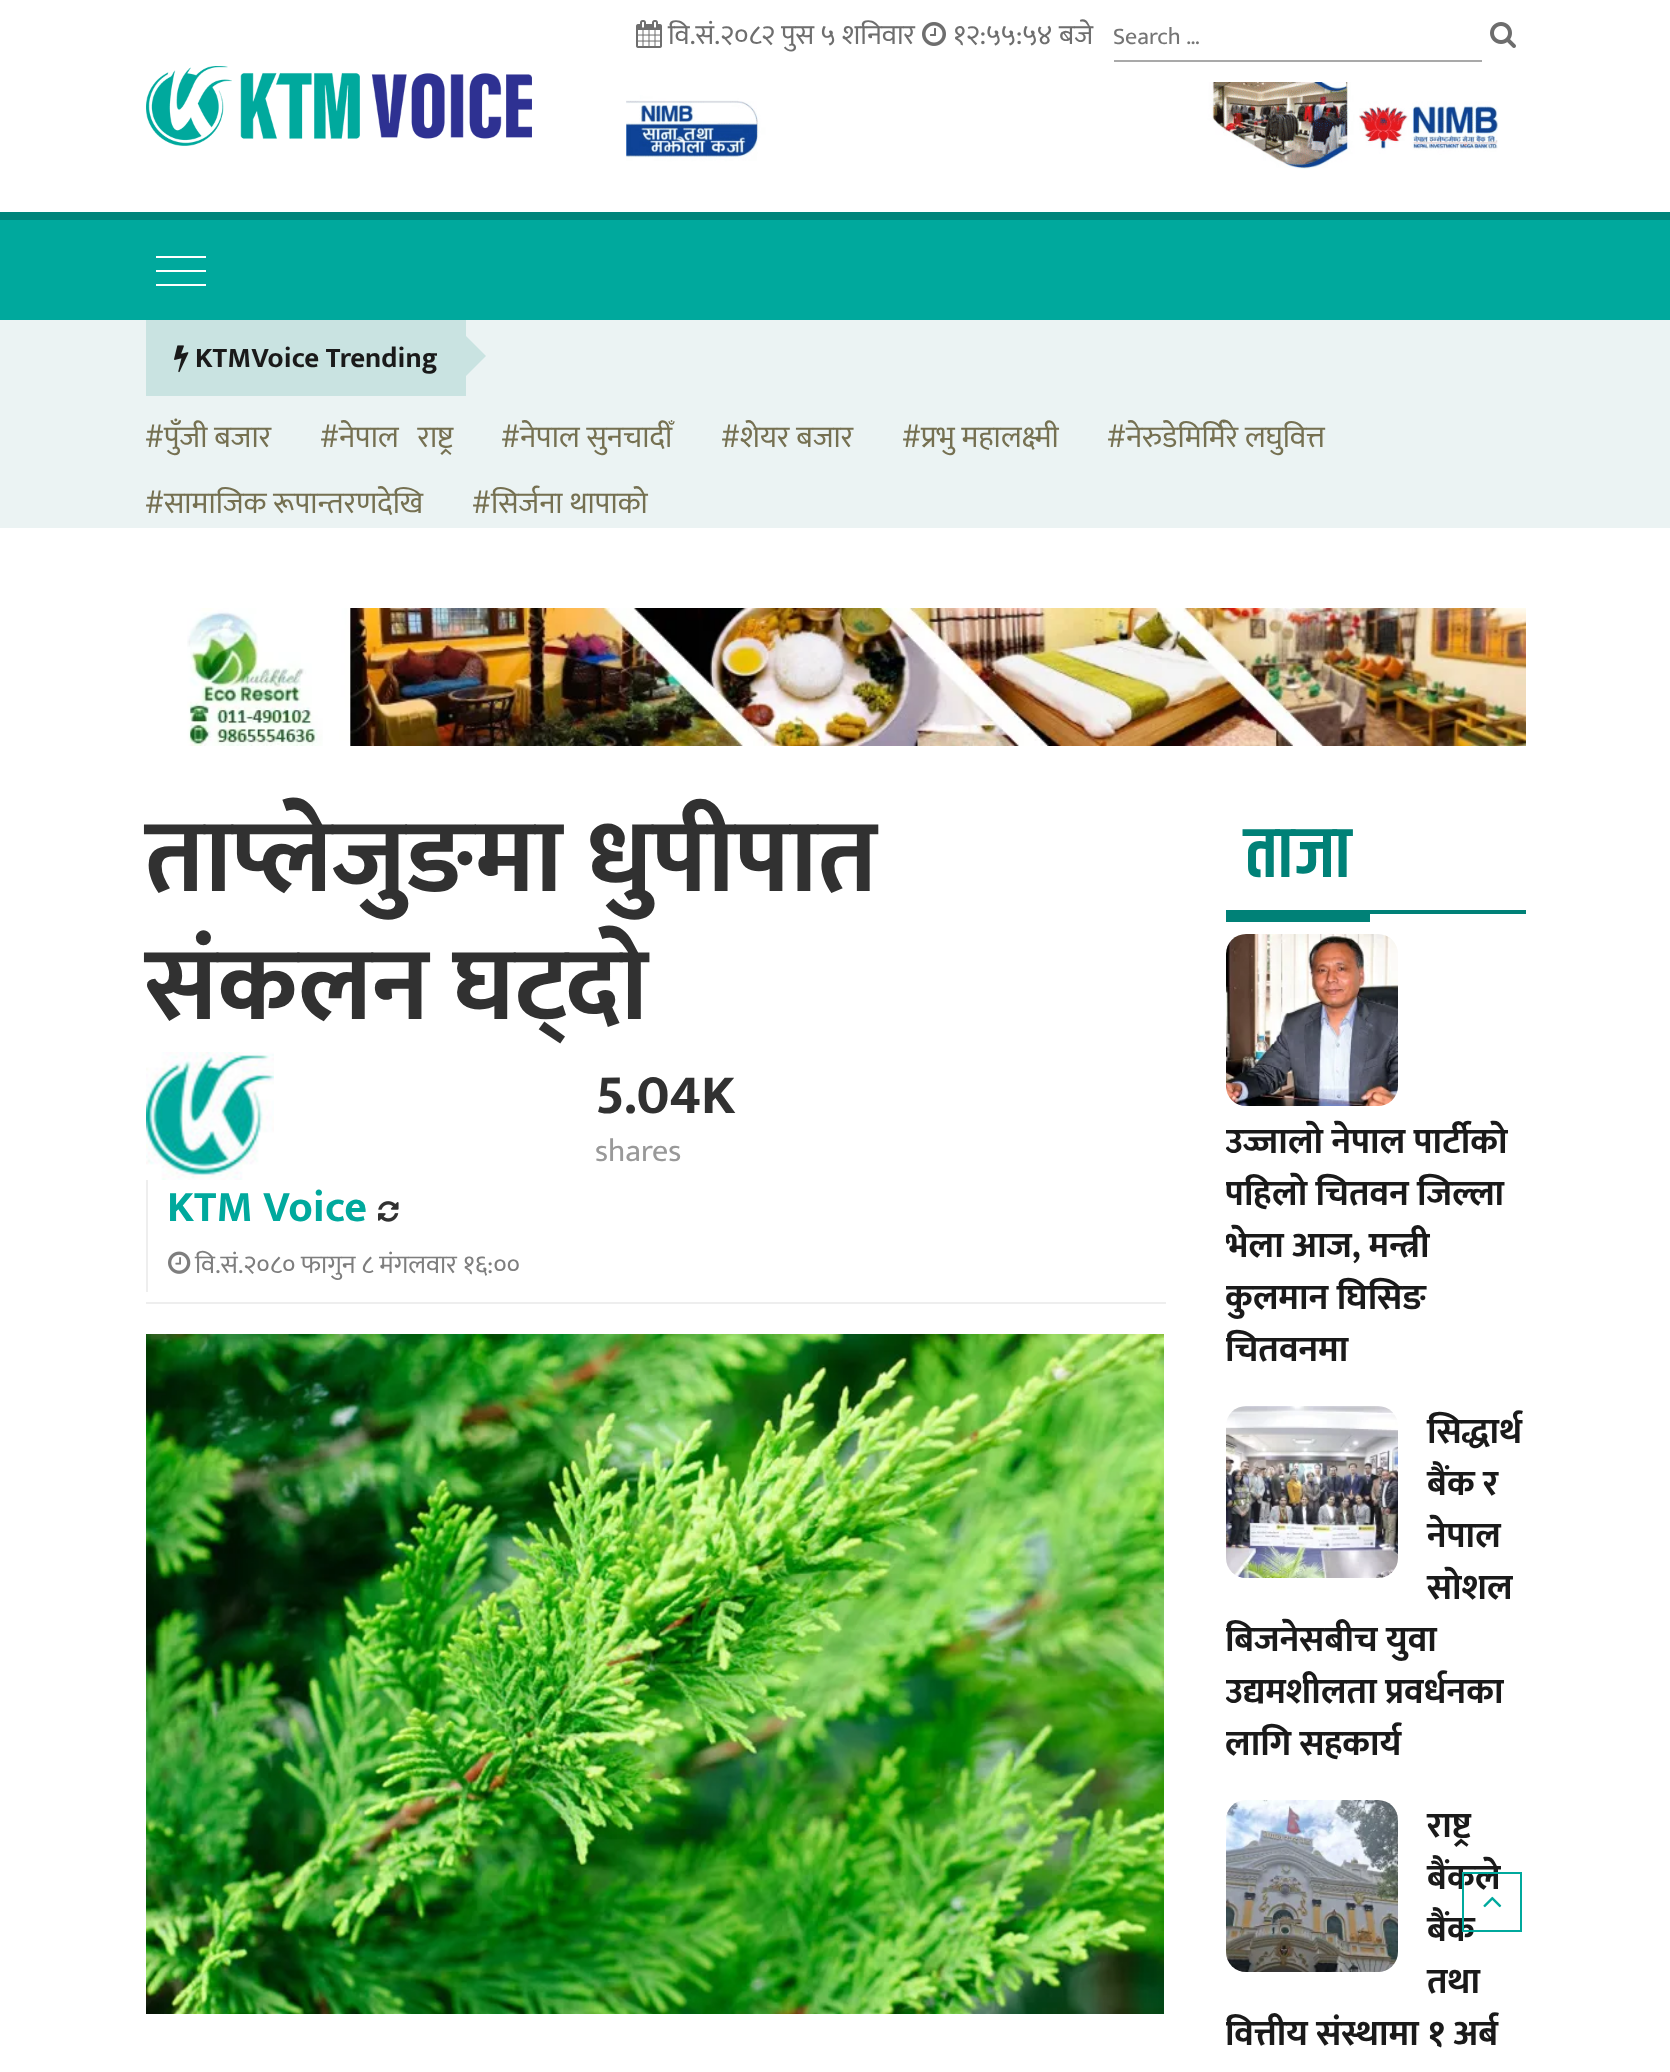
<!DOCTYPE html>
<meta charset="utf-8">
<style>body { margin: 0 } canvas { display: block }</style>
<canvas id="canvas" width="1670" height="2072"></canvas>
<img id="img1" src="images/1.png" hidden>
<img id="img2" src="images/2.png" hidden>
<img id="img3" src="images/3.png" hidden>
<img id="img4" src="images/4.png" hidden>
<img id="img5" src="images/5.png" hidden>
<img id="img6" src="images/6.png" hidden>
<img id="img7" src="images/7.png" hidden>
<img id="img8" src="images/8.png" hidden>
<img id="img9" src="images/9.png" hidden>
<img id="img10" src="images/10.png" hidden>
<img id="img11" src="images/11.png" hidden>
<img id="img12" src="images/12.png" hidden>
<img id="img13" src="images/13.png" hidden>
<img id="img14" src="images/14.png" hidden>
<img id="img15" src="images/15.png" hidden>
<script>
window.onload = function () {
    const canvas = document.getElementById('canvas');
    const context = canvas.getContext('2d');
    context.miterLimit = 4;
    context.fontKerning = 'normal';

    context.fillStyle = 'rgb(255, 255, 255)';
    context.fillRect(0, 0, 1670, 2072);
    context.drawImage(document.getElementById('img1'), 636, 20, 26, 28);
    context.drawImage(document.getElementById('img2'), 922, 22, 24, 24);
    context.fillStyle = 'rgb(169, 169, 169)';
    context.fillRect(1114, 60, 368, 2);
    context.drawImage(document.getElementById('img3'), 1490, 22, 26, 26);
    context.drawImage(document.getElementById('img4'), 626, 82, 873, 87);
    context.drawImage(document.getElementById('img5'), 146, 66, 386, 80);
    context.fillStyle = 'rgb(0, 169, 157)';
    context.fillRect(0, 220, 1670, 100);
    context.fillStyle = 'rgb(0, 133, 123)';
    context.fillRect(0, 212, 1670, 8);
    context.fillStyle = 'rgb(255, 255, 255)';
    context.fillRect(156, 256, 50, 2);
    context.fillRect(156, 270, 50, 2);
    context.fillRect(156, 284, 50, 2);
    context.fillStyle = 'rgb(235, 243, 243)';
    context.fillRect(0, 320, 1670, 208);
    context.fillStyle = 'rgb(201, 227, 225)';
    context.fillRect(146, 320, 320, 76);
    context.drawImage(document.getElementById('img6'), 174, 345, 15, 28);
    context.beginPath();
    context.moveTo(466, 376);
    context.lineTo(466, 336);
    context.lineTo(486, 356);
    context.closePath();
    context.fill();
    context.drawImage(document.getElementById('img7'), 187, 608, 1339, 138);
    context.fillStyle = 'rgb(238, 238, 238)';
    context.fillRect(146, 1302, 1020, 2);
    context.drawImage(document.getElementById('img8'), 146, 1052, 128, 128);
    context.fillRect(146, 1180, 2, 112);
    context.drawImage(document.getElementById('img9'), 378, 1201, 21, 21);
    context.drawImage(document.getElementById('img10'), 168, 1251, 23, 23);
    context.drawImage(document.getElementById('img11'), 146, 1334, 1018, 680);
    context.fillStyle = 'rgb(0, 129, 119)';
    context.fillRect(1370, 910, 156, 4);
    context.fillRect(1226, 910, 144, 12);
    context.drawImage(document.getElementById('img12'), 1226, 934, 172, 172);
    context.drawImage(document.getElementById('img13'), 1226, 1406, 172, 172);
    context.drawImage(document.getElementById('img14'), 1226, 1800, 172, 172);
    context.font = '28px Ek Mukta';
    context.fillStyle = 'rgb(110, 110, 110)';
    context.fillText('वि.सं.२०८२ पुस ५ शनिवार', 668, 44);
    context.fillText('१२:५५:५४ बजे', 953, 44);
    context.font = '24px Ek Mukta';
    context.fillStyle = 'rgb(117, 117, 117)';
    context.fillText('Search …', 1113, 44);
    context.font = 'bold 28.75px Ek Mukta';
    context.fillStyle = 'rgb(26, 26, 26)';
    context.fillText('KTMVoice Trending', 195, 367);
    context.font = '30.5px Ek Mukta';
    context.fillStyle = 'rgb(117, 112, 81)';
    context.fillText('#पुँजी बजार', 145, 447);
    context.wordSpacing = '12px';
    context.fillText('#नेपाल राष्ट्र', 320, 447);
    context.wordSpacing = '0px';
    context.fillText('#नेपाल सुनचादीँ', 501, 447);
    context.fillText('#शेयर बजार', 721, 447);
    context.fillText('#प्रभु महालक्ष्मी', 902, 447);
    context.fillText('#नेरुडेमिर्मिरे लघुवित्त', 1107, 447);
    context.fillText('#सामाजिक रूपान्तरणदेखि', 145, 513);
    context.fillText('#सिर्जना थापाको', 472, 513);
    context.font = 'bold 104px Ek Mukta';
    context.fillStyle = 'rgb(49, 49, 49)';
    context.fillText('ताप्लेजुङमा धुपीपात', 145, 891);
    context.fillText('संकलन घट्दो', 145, 1019);
    context.font = 'bold 56px Ek Mukta';
    context.fillText('5.04K', 595, 1113);
    context.font = '32px Ek Mukta';
    context.fillStyle = 'rgb(153, 153, 153)';
    context.fillText('shares', 595, 1161);
    context.font = 'bold 44px Ek Mukta';
    context.fillStyle = 'rgb(0, 169, 157)';
    context.fillText('KTM Voice', 167, 1221);
    context.font = '26px Ek Mukta';
    context.fillStyle = 'rgb(126, 126, 126)';
    context.fillText('वि.सं.२०८० फागुन ८ मंगलवार १६:००', 195, 1273);
    context.font = '600 72px Khand';
    context.fillStyle = 'rgb(0, 129, 119)';
    context.fillText('ताजा', 1245, 877);
    context.save();
    context.beginPath();
    context.rect(1226, 934, 300, 442);
    context.clip();
    context.font = 'bold 36px Ek Mukta';
    context.fillStyle = 'rgb(26, 26, 26)';
    context.fillText('उज्जालो नेपाल पार्टीको', 1225, 1153);
    context.fillText('पहिलो चितवन जिल्ला', 1225, 1205);
    context.fillText('भेला आज, मन्त्री', 1225, 1257);
    context.fillText('कुलमान घिसिङ', 1225, 1309);
    context.fillText('चितवनमा', 1225, 1361);
    context.restore();
    context.font = 'bold 36px Ek Mukta';
    context.fillStyle = 'rgb(26, 26, 26)';
    context.fillText('सिद्धार्थ', 1427, 1443);
    context.fillText('बैंक र', 1427, 1495);
    context.fillText('नेपाल', 1427, 1547);
    context.fillText('सोशल', 1427, 1599);
    context.save();
    context.beginPath();
    context.rect(1226, 1406, 300, 364);
    context.clip();
    context.fillText('बिजनेसबीच युवा', 1225, 1651);
    context.fillText('उद्यमशीलता प्रवर्धनका', 1225, 1703);
    context.fillText('लागि सहकार्य', 1225, 1755);
    context.restore();
    context.fillText('राष्ट्र', 1427, 1837);
    context.fillText('बैंकले', 1427, 1889);
    context.fillText('बैंक', 1427, 1941);
    context.fillText('तथा', 1427, 1993);
    context.save();
    context.beginPath();
    context.rect(1226, 1800, 300, 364);
    context.clip();
    context.fillText('वित्तीय संस्थामा १ अर्ब', 1225, 2045);
    context.restore();
    context.strokeStyle = 'rgb(0, 169, 157)';
    context.lineWidth = 2;
    context.strokeRect(1463, 1873, 58, 58);
    context.drawImage(document.getElementById('img15'), 1483, 1896, 19, 12);
};
</script>
